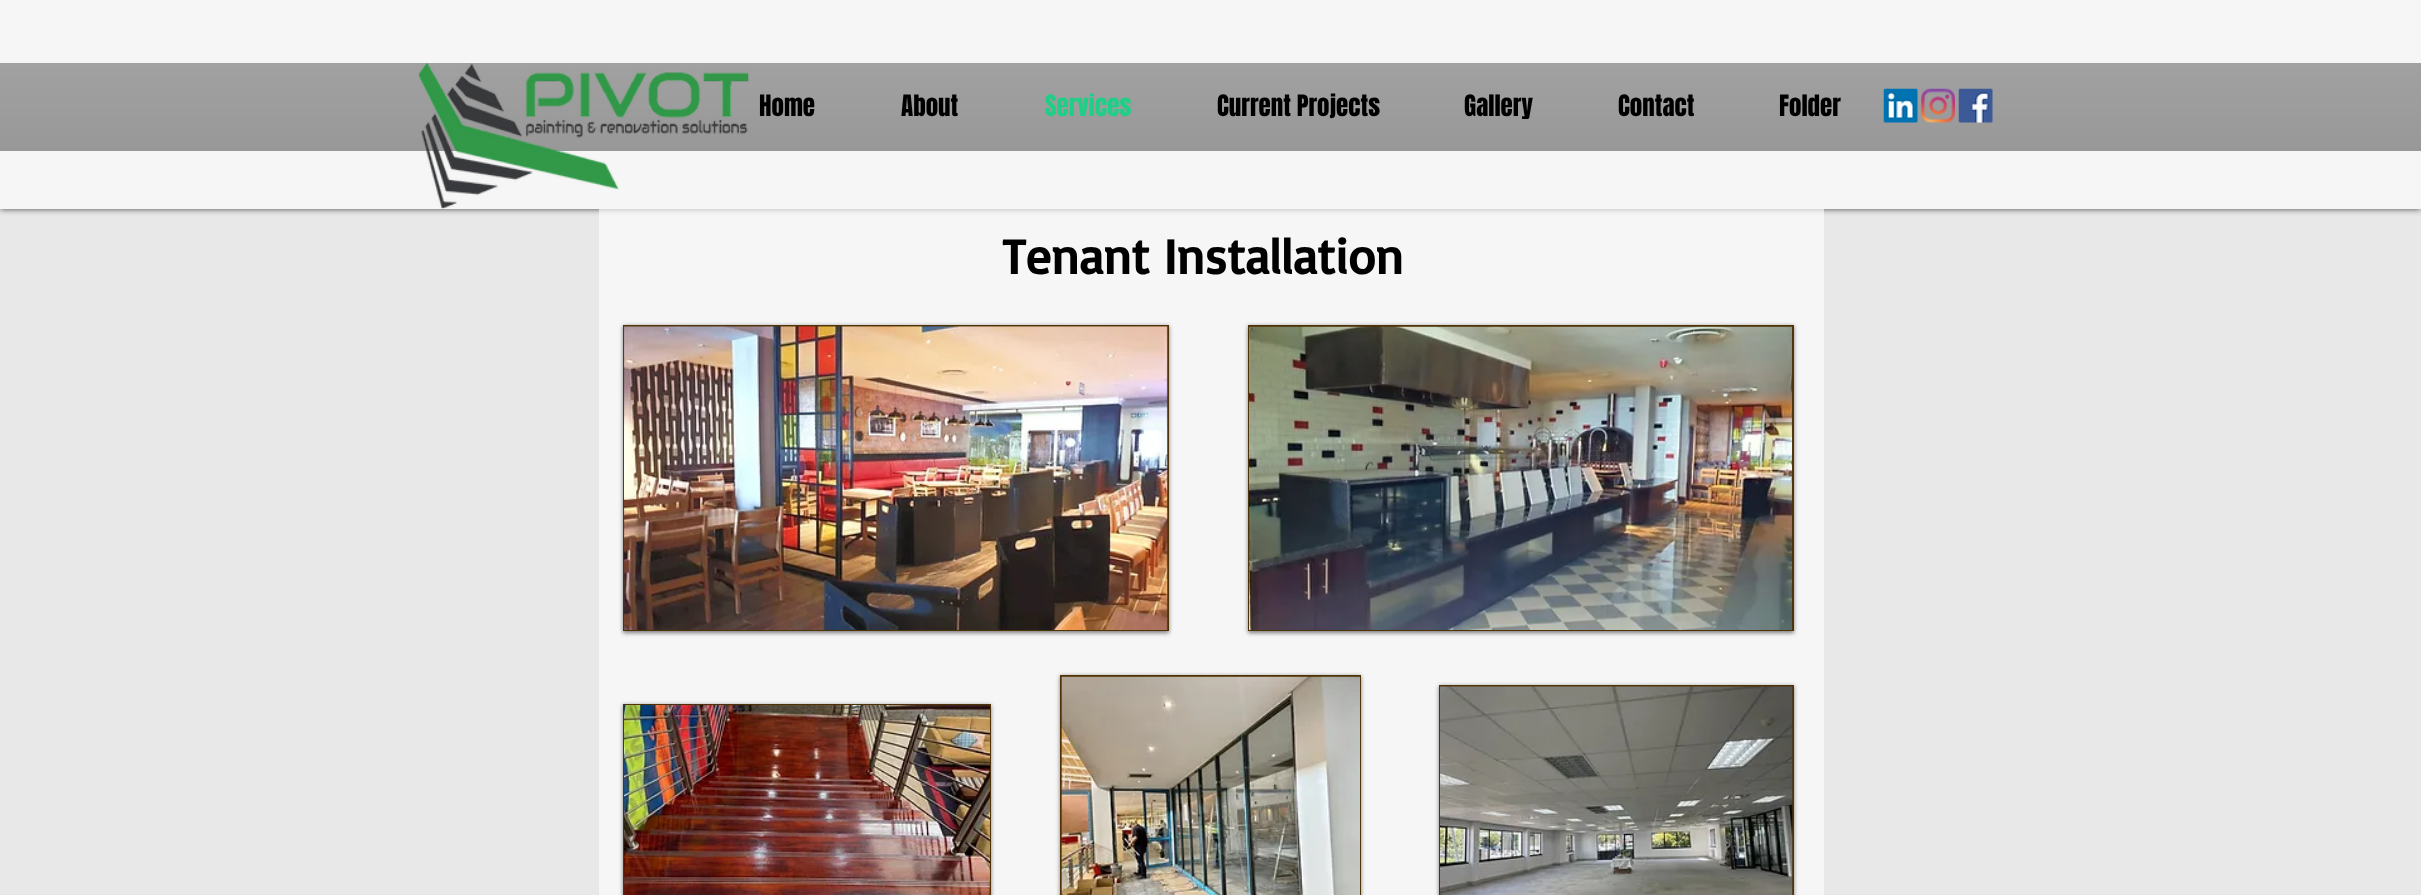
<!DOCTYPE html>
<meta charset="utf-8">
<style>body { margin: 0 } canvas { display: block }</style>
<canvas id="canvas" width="2421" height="895"></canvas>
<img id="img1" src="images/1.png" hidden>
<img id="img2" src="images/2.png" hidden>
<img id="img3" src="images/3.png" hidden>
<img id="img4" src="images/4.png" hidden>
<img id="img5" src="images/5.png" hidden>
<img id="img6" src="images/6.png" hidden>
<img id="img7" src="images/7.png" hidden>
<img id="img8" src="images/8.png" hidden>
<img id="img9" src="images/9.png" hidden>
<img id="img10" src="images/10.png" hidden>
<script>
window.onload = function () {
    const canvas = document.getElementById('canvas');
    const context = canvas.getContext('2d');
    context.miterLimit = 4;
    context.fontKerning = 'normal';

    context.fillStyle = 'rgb(232, 232, 232)';
    context.fillRect(0, 0, 2421, 895);
    context.save();
    context.beginPath();
    context.moveTo(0, 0);
    context.lineTo(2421, 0);
    context.lineTo(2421, 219);
    context.lineTo(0, 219);
    context.closePath();
    context.moveTo(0, 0);
    context.lineTo(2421, 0);
    context.lineTo(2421, 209);
    context.lineTo(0, 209);
    context.closePath();
    context.clip('evenodd');
    context.fillStyle = 'rgba(0, 0, 0, 0.7)';
    context.filter = 'blur(3px)';
    context.beginPath();
    context.rect(0, 0, 2421, 209);
    context.fill();
    context.filter = 'none';
    context.restore();
    context.fillStyle = 'rgba(255, 255, 255, 0.6)';
    context.fillRect(0, 0, 2421, 209);
    context.fillStyle = 'rgb(129, 129, 129)';
    context.fillRect(0, 63, 2421, 88);
    context.drawImage(document.getElementById('img1'), 0, 63, 2421, 88);
    context.drawImage(document.getElementById('img2'), 419, 63, 330, 146);
    context.drawImage(document.getElementById('img3'), 1883, 88, 35, 35);
    context.drawImage(document.getElementById('img4'), 1921, 88, 34, 35);
    context.drawImage(document.getElementById('img5'), 1958, 88, 35, 35);
    context.fillStyle = 'rgba(255, 255, 255, 0.6)';
    context.fillRect(599, 209, 1225, 686);
    context.fillStyle = 'rgba(0, 0, 0, 0.5)';
    context.filter = 'blur(2px)';
    context.beginPath();
    context.rect(623, 326, 546, 307);
    context.fill();
    context.filter = 'none';
    context.fillStyle = 'rgb(79, 51, 6)';
    context.fillRect(623, 325, 546, 306);
    context.drawImage(document.getElementById('img6'), 623, 326, 545, 304);
    context.fillStyle = 'rgba(0, 0, 0, 0.5)';
    context.filter = 'blur(2px)';
    context.beginPath();
    context.rect(1248, 326, 546, 307);
    context.fill();
    context.filter = 'none';
    context.fillStyle = 'rgb(79, 51, 6)';
    context.fillRect(1248, 325, 546, 306);
    context.drawImage(document.getElementById('img7'), 1249, 326, 544, 304);
    context.fillStyle = 'rgba(0, 0, 0, 0.5)';
    context.filter = 'blur(2px)';
    context.beginPath();
    context.rect(623, 705, 368, 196);
    context.fill();
    context.filter = 'none';
    context.fillStyle = 'rgb(79, 51, 6)';
    context.fillRect(623, 704, 368, 191);
    context.drawImage(document.getElementById('img8'), 624, 705, 366, 190);
    context.fillStyle = 'rgba(0, 0, 0, 0.5)';
    context.filter = 'blur(2px)';
    context.beginPath();
    context.rect(1060, 676, 301, 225);
    context.fill();
    context.filter = 'none';
    context.fillStyle = 'rgb(79, 51, 6)';
    context.fillRect(1060, 675, 301, 220);
    context.drawImage(document.getElementById('img9'), 1061, 676, 299, 219);
    context.fillStyle = 'rgba(0, 0, 0, 0.5)';
    context.filter = 'blur(2px)';
    context.beginPath();
    context.rect(1439, 686, 355, 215);
    context.fill();
    context.filter = 'none';
    context.fillStyle = 'rgb(79, 51, 6)';
    context.fillRect(1439, 685, 355, 210);
    context.drawImage(document.getElementById('img10'), 1440, 686, 353, 209);
    context.font = '25px Anton';
    context.fillStyle = 'rgb(0, 0, 0)';
    context.fillText('Home', 759, 116);
    context.fillText('About', 901, 116);
    context.fillStyle = 'rgb(32, 206, 136)';
    context.fillText('Services', 1045, 116);
    context.fillStyle = 'rgb(0, 0, 0)';
    context.fillText('Current Projects', 1217, 116);
    context.fillText('Gallery', 1464, 116);
    context.fillText('Contact', 1618, 116);
    context.fillText('Folder', 1779, 116);
    context.font = 'bold 50px Basic';
    context.fillText('Tenant Installation', 1002, 274);
};
</script>
